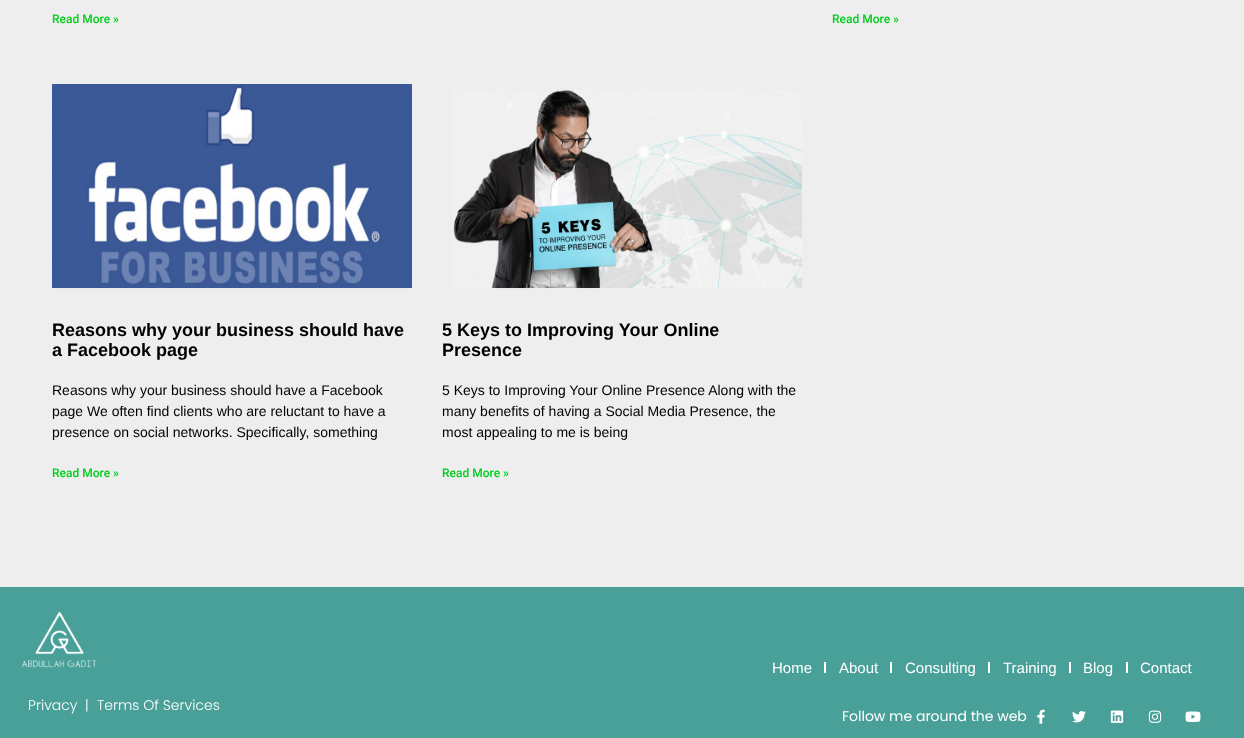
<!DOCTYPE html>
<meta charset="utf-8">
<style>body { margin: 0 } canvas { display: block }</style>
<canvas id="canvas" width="1244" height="738"></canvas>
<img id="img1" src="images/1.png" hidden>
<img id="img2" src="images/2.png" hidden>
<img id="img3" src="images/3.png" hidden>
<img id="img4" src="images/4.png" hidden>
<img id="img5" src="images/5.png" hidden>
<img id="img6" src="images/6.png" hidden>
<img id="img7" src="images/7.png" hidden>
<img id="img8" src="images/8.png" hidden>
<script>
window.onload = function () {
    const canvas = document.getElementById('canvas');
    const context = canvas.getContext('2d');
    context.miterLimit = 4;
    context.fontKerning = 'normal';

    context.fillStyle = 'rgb(238, 238, 238)';
    context.fillRect(0, 0, 1244, 738);
    context.drawImage(document.getElementById('img1'), 52, 84, 360, 205);
    context.drawImage(document.getElementById('img2'), 453, 90, 349, 199);
    context.fillStyle = 'rgb(73, 160, 152)';
    context.fillRect(0, 587, 1244, 151);
    context.drawImage(document.getElementById('img3'), 22, 612, 75, 56);
    context.fillStyle = 'rgb(255, 255, 255)';
    context.fillRect(824, 662, 2, 11);
    context.fillRect(890, 662, 2, 11);
    context.fillRect(988, 662, 2, 11);
    context.fillRect(1069, 662, 2, 11);
    context.fillRect(1126, 662, 2, 11);
    context.drawImage(document.getElementById('img4'), 1037, 709, 8, 15);
    context.drawImage(document.getElementById('img5'), 1072, 711, 14, 12);
    context.drawImage(document.getElementById('img6'), 1110, 710, 14, 13);
    context.drawImage(document.getElementById('img7'), 1148, 710, 14, 13);
    context.drawImage(document.getElementById('img8'), 1185, 711, 16, 11);
    context.font = '500 12px Roboto';
    context.fillStyle = 'rgb(0, 206, 27)';
    context.fillText('Read More »', 52, 23);
    context.fillText('Read More »', 832, 23);
    context.font = 'bold 18px Liberation Sans';
    context.fillStyle = 'rgb(0, 0, 0)';
    context.fillText('Reasons why your business should have', 52, 336);
    context.fillText('a Facebook page', 52, 356);
    context.font = '14px Liberation Sans';
    context.fillText('Reasons why your business should have a Facebook', 52, 395);
    context.fillText('page We often find clients who are reluctant to have a', 52, 416);
    context.fillText('presence on social networks. Specifically, something', 52, 437);
    context.font = '500 12px Roboto';
    context.fillStyle = 'rgb(0, 206, 27)';
    context.fillText('Read More »', 52, 477);
    context.font = 'bold 18px Liberation Sans';
    context.fillStyle = 'rgb(0, 0, 0)';
    context.fillText('5 Keys to Improving Your Online', 442, 336);
    context.fillText('Presence', 442, 356);
    context.font = '14px Liberation Sans';
    context.fillText('5 Keys to Improving Your Online Presence Along with the', 442, 395);
    context.fillText('many benefits of having a Social Media Presence, the', 442, 416);
    context.fillText('most appealing to me is being', 442, 437);
    context.font = '500 12px Roboto';
    context.fillStyle = 'rgb(0, 206, 27)';
    context.fillText('Read More »', 442, 477);
    context.font = '300 14px Poppins';
    context.fillStyle = 'rgb(255, 255, 255)';
    context.fillText('Privacy', 28, 710);
    context.fillText('|', 85, 710);
    context.fillText('Terms Of Services', 97, 710);
    context.font = '15px Liberation Sans';
    context.fillText('Home', 772, 673);
    context.fillText('About', 839, 673);
    context.fillText('Consulting', 905, 673);
    context.fillText('Training', 1003, 673);
    context.fillText('Blog', 1083, 673);
    context.fillText('Contact', 1140, 673);
    context.font = '14px Poppins';
    context.fillText('Follow me around the web', 842, 721);
};
</script>
